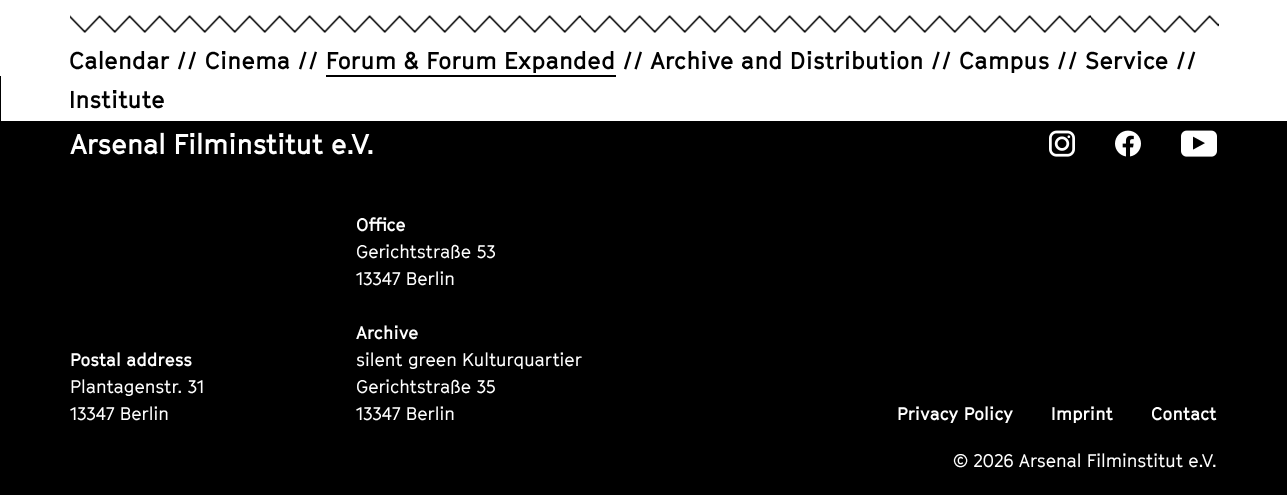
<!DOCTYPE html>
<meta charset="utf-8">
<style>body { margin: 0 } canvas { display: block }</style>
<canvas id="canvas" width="1287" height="495"></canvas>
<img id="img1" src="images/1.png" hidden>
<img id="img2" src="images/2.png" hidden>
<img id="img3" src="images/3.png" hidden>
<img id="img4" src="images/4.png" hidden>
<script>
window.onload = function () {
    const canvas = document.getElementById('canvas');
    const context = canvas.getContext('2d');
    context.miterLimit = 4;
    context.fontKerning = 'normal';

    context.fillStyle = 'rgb(255, 255, 255)';
    context.fillRect(0, 0, 1287, 495);
    context.fillStyle = 'rgb(0, 0, 0)';
    context.fillRect(0, 76, 1287, 419);
    context.fillStyle = 'rgb(255, 255, 255)';
    context.fillRect(1, 76, 1286, 45);
    context.drawImage(document.getElementById('img1'), 70, 15, 1149, 18);
    context.fillStyle = 'rgb(0, 0, 0)';
    context.fillRect(326, 75, 290, 2);
    context.drawImage(document.getElementById('img2'), 1049, 130, 26, 27);
    context.drawImage(document.getElementById('img3'), 1115, 130, 26, 27);
    context.drawImage(document.getElementById('img4'), 1181, 130, 36, 27);
    context.font = 'bold 24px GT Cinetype';
    context.fillText('Calendar // Cinema // Forum & Forum Expanded // Archive and Distribution // Campus // Service //', 69, 69);
    context.fillText('Institute', 69, 108);
    context.letterSpacing = '-0.3px';
    context.font = 'bold 28px GT Cinetype';
    context.fillStyle = 'rgb(255, 255, 255)';
    context.fillText('Arsenal Filminstitut e.V.', 70, 154);
    context.letterSpacing = '0px';
    context.font = 'bold 18px GT Cinetype';
    context.fillText('Postal address', 70, 366);
    context.font = '18px GT Cinetype';
    context.fillText('Plantagenstr. 31', 70, 393);
    context.fillText('13347 Berlin', 70, 420);
    context.font = 'bold 18px GT Cinetype';
    context.fillText('Office', 356, 231);
    context.font = '18px GT Cinetype';
    context.fillText('Gerichtstraße 53', 356, 258);
    context.fillText('13347 Berlin', 356, 285);
    context.font = 'bold 18px GT Cinetype';
    context.fillText('Archive', 356, 339);
    context.font = '18px GT Cinetype';
    context.fillText('silent green Kulturquartier', 356, 366);
    context.fillText('Gerichtstraße 35', 356, 393);
    context.fillText('13347 Berlin', 356, 420);
    context.font = 'bold 18px GT Cinetype';
    context.fillText('Privacy Policy', 897, 420);
    context.fillText('Imprint', 1051, 420);
    context.fillText('Contact', 1151, 420);
    context.font = '18px GT Cinetype';
    context.fillText('© 2026 Arsenal Filminstitut e.V.', 953, 467);
};
</script>
